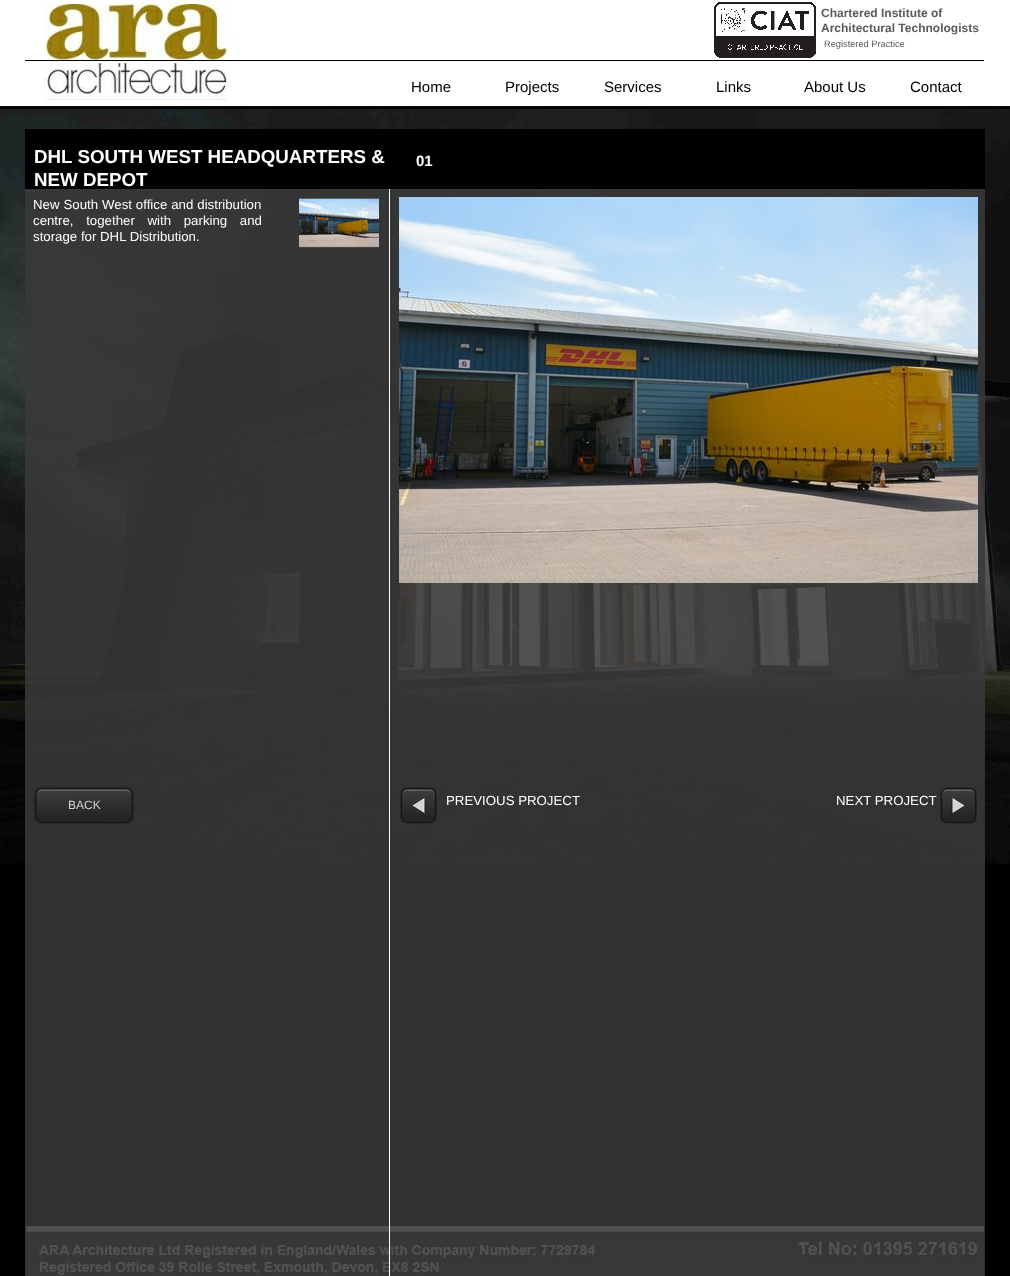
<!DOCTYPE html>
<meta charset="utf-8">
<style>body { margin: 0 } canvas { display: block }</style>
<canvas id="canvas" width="1010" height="1276"></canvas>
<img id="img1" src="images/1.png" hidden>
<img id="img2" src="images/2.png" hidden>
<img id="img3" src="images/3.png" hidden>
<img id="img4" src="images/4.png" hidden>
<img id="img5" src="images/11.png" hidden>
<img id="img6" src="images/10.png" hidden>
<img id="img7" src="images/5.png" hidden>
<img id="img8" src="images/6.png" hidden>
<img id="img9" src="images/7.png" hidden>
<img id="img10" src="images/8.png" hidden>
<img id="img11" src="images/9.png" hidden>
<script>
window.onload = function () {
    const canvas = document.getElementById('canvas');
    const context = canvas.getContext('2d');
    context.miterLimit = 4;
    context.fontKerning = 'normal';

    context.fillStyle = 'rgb(255, 255, 255)';
    context.fillRect(0, 0, 1010, 1276);
    context.drawImage(document.getElementById('img1'), 0, 106, 1010, 1170);
    context.drawImage(document.getElementById('img2'), 41, 0, 194, 60);
    context.drawImage(document.getElementById('img3'), 714, 2, 102, 56);
    context.fillStyle = 'rgb(0, 0, 0)';
    context.fillRect(25, 60, 959, 1);
    context.drawImage(document.getElementById('img4'), 44, 61, 184, 39);
    context.drawImage(document.getElementById('img5'), 0, 109, 1010, 755);
    context.fillRect(25, 129, 960, 60);
    context.drawImage(document.getElementById('img6'), 26, 1226, 958, 50);
    context.fillStyle = 'rgba(57, 57, 57, 0.88)';
    context.fillRect(25, 189, 960, 1087);
    context.drawImage(document.getElementById('img7'), 299, 198, 80, 50);
    context.fillStyle = 'rgb(255, 255, 255)';
    context.fillRect(389, 189, 1, 1087);
    context.drawImage(document.getElementById('img8'), 399, 197, 579, 386);
    context.drawImage(document.getElementById('img9'), 33, 786, 102, 38);
    context.drawImage(document.getElementById('img10'), 400, 787, 37, 37);
    context.drawImage(document.getElementById('img11'), 940, 787, 37, 37);
    context.font = 'bold 12px Liberation Sans';
    context.fillStyle = 'rgb(90, 90, 90)';
    context.fillText('Chartered Institute of', 821, 17);
    context.fillText('Architectural Technologists', 821, 32);
    context.font = '9.25px Liberation Sans';
    context.fillText('Registered Practice', 824, 47);
    context.font = '15px Liberation Sans';
    context.fillStyle = 'rgb(0, 0, 0)';
    context.fillText('Home', 411, 92);
    context.fillText('Projects', 505, 92);
    context.fillText('Services', 604, 92);
    context.fillText('Links', 716, 92);
    context.fillText('About Us', 804, 92);
    context.fillText('Contact', 910, 92);
    context.font = 'bold 18.75px Liberation Sans';
    context.fillStyle = 'rgb(255, 255, 255)';
    context.fillText('DHL SOUTH WEST HEADQUARTERS &', 34, 163);
    context.fillText('NEW DEPOT', 34, 186);
    context.font = 'bold 15px Liberation Sans';
    context.fillText('01', 416, 166);
    context.wordSpacing = '0.25px';
    context.font = '13.25px Liberation Sans';
    context.fillText('New South West office and distribution', 33, 209);
    context.wordSpacing = '9px';
    context.fillText('centre, together with parking and', 33, 225);
    context.wordSpacing = '0px';
    context.fillText('storage for DHL Distribution.', 33, 241);
    context.font = '12px Liberation Sans';
    context.fillStyle = 'rgb(212, 212, 212)';
    context.fillText('BACK', 68, 809);
    context.font = '13.25px Liberation Sans';
    context.fillStyle = 'rgb(255, 255, 255)';
    context.fillText('PREVIOUS PROJECT', 446, 805);
    context.fillText('NEXT PROJECT', 836, 805);
};
</script>
